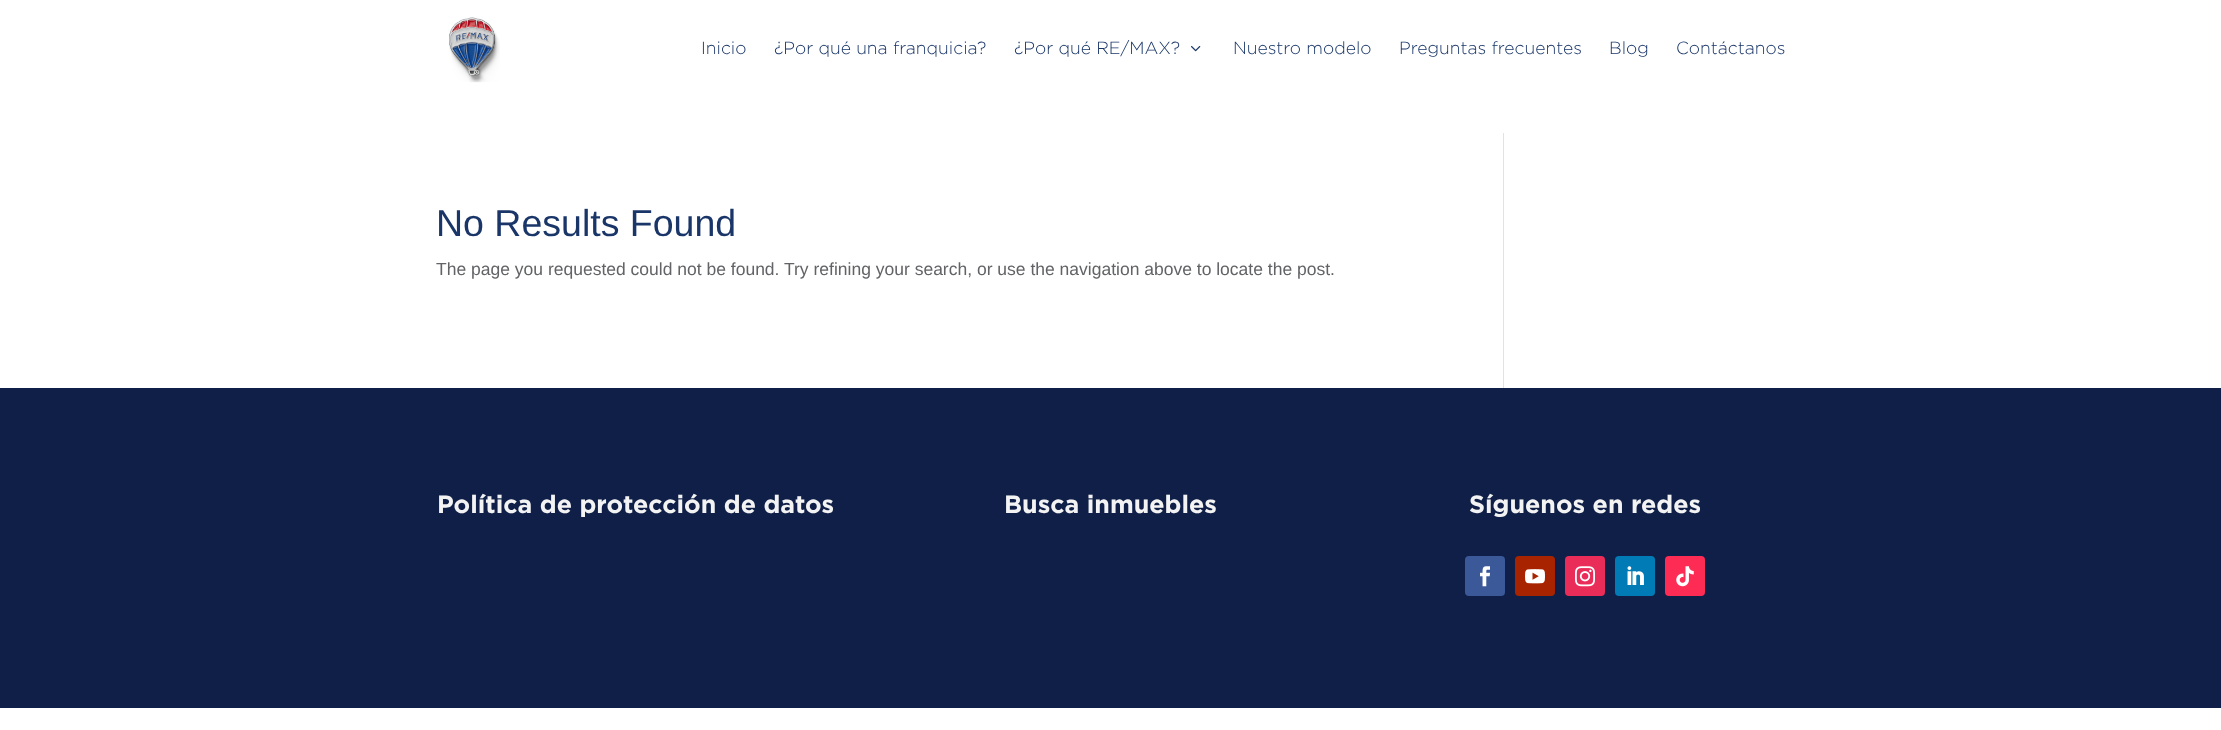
<!DOCTYPE html>
<meta charset="utf-8">
<style>body { margin: 0 } canvas { display: block }</style>
<canvas id="canvas" width="2221" height="730"></canvas>
<img id="img1" src="images/1.png" hidden>
<img id="img2" src="images/2.png" hidden>
<img id="img3" src="images/3.png" hidden>
<img id="img4" src="images/4.png" hidden>
<img id="img5" src="images/5.png" hidden>
<img id="img6" src="images/6.png" hidden>
<img id="img7" src="images/7.png" hidden>
<script>
window.onload = function () {
    const canvas = document.getElementById('canvas');
    const context = canvas.getContext('2d');
    context.miterLimit = 4;
    context.fontKerning = 'normal';

    context.fillStyle = 'rgb(255, 255, 255)';
    context.fillRect(0, 0, 2221, 730);
    context.drawImage(document.getElementById('img1'), 449, 17, 51, 66);
    context.drawImage(document.getElementById('img2'), 1191, 46, 10, 6);
    context.fillStyle = 'rgb(226, 226, 226)';
    context.fillRect(1503, 133, 1, 255);
    context.fillStyle = 'rgb(15, 31, 71)';
    context.fillRect(0, 388, 2221, 320);
    context.fillStyle = 'rgb(59, 89, 152)';
    context.beginPath();
    context.roundRect(1465, 556, 40, 40, 4);
    context.fill();
    context.drawImage(document.getElementById('img3'), 1480, 566, 10, 21);
    context.fillStyle = 'rgb(168, 36, 0)';
    context.beginPath();
    context.roundRect(1515, 556, 40, 40, 4);
    context.fill();
    context.drawImage(document.getElementById('img4'), 1525, 569, 20, 15);
    context.fillStyle = 'rgb(234, 44, 89)';
    context.beginPath();
    context.roundRect(1565, 556, 40, 40, 4);
    context.fill();
    context.drawImage(document.getElementById('img5'), 1575, 566, 20, 21);
    context.fillStyle = 'rgb(0, 123, 182)';
    context.beginPath();
    context.roundRect(1615, 556, 40, 40, 4);
    context.fill();
    context.drawImage(document.getElementById('img6'), 1627, 566, 17, 19);
    context.fillStyle = 'rgb(254, 44, 85)';
    context.beginPath();
    context.roundRect(1665, 556, 40, 40, 4);
    context.fill();
    context.drawImage(document.getElementById('img7'), 1676, 566, 18, 21);
    context.font = '300 17.5px Gotham';
    context.fillStyle = 'rgb(26, 54, 104)';
    context.fillText('Inicio', 701, 54);
    context.fillText('¿Por qué una franquicia?', 774, 54);
    context.fillText('¿Por qué RE/MAX?', 1014, 54);
    context.fillText('Nuestro modelo', 1233, 54);
    context.fillText('Preguntas frecuentes', 1399, 54);
    context.fillText('Blog', 1609, 54);
    context.fillText('Contáctanos', 1676, 54);
    context.font = '37.5px Liberation Sans';
    context.fillText('No Results Found', 436, 236);
    context.font = '17.5px Liberation Sans';
    context.fillStyle = 'rgb(98, 99, 102)';
    context.fillText('The page you requested could not be found. Try refining your search, or use the navigation above to locate the post.', 436, 275);
    context.font = 'bold 25px Gotham';
    context.fillStyle = 'rgb(243, 243, 243)';
    context.fillText('Política de protección de datos', 437, 513);
    context.fillText('Busca inmuebles', 1004, 513);
    context.fillText('Síguenos en redes', 1469, 513);
};
</script>
